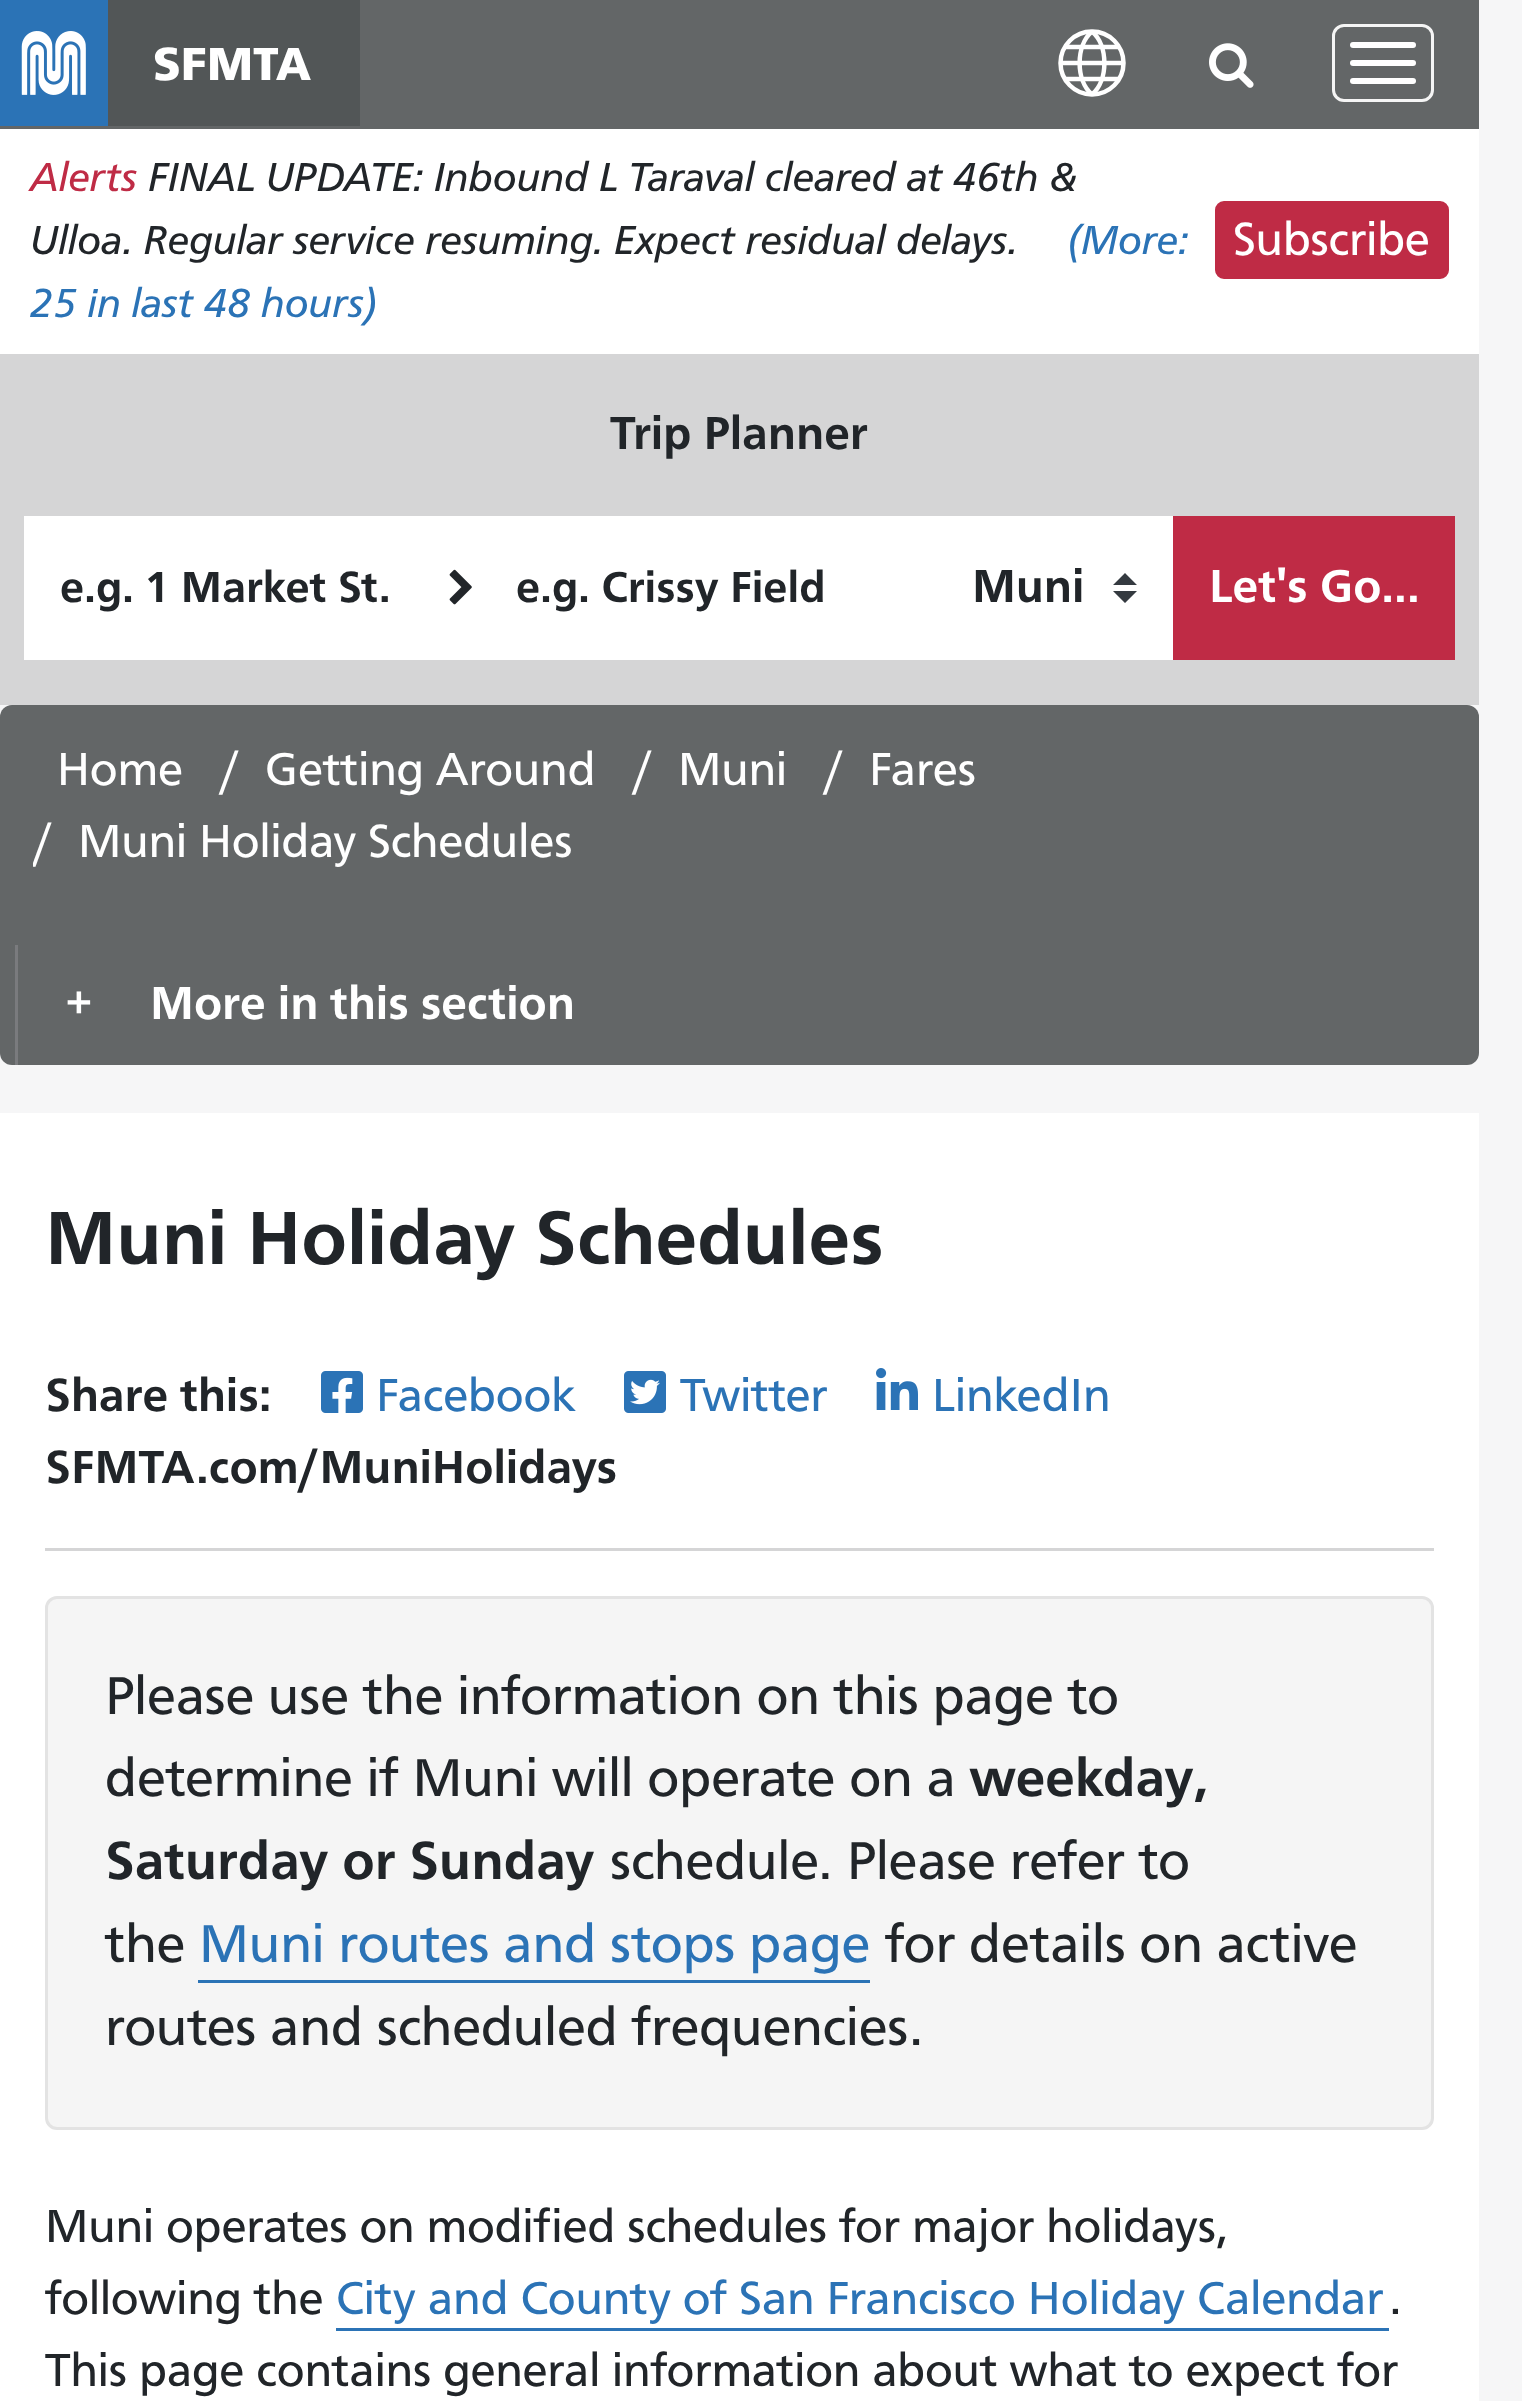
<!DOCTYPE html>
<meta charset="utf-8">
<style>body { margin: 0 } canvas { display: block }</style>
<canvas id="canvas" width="1522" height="2401"></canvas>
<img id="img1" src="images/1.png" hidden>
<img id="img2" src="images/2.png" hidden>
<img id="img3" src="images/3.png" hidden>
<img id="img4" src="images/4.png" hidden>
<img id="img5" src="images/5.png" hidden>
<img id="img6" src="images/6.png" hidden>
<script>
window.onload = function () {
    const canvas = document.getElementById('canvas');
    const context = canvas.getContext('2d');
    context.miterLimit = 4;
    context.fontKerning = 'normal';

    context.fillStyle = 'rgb(246, 246, 247)';
    context.fillRect(0, 0, 1522, 2401);
    context.fillStyle = 'rgb(99, 102, 103)';
    context.fillRect(0, 0, 1479, 129);
    context.fillStyle = 'rgb(43, 115, 182)';
    context.fillRect(0, 0, 108, 126);
    context.drawImage(document.getElementById('img1'), 21, 31, 65, 64);
    context.fillStyle = 'rgb(82, 86, 87)';
    context.fillRect(108, 0, 252, 126);
    context.beginPath();
    context.arc(1092, 63, 31.5, 0, 2 * Math.PI);
    context.strokeStyle = 'rgb(255, 255, 255)';
    context.lineWidth = 4.5;
    context.stroke();
    context.beginPath();
    context.moveTo(1092, 31.5);
    context.bezierCurveTo(1075.5, 45.5, 1075.5, 80.5, 1092, 94.5);
    context.stroke();
    context.beginPath();
    context.moveTo(1092, 31.5);
    context.bezierCurveTo(1108.5, 45.5, 1108.5, 80.5, 1092, 94.5);
    context.stroke();
    context.beginPath();
    context.moveTo(1060.5, 63);
    context.lineTo(1123.5, 63);
    context.stroke();
    context.beginPath();
    context.moveTo(1119.5, 47);
    context.lineTo(1064.5, 47);
    context.moveTo(1119, 79);
    context.lineTo(1065, 79);
    context.stroke();
    context.drawImage(document.getElementById('img2'), 1209, 43, 45, 45);
    context.beginPath();
    context.roundRect(1333.5, 25.5, 99, 75, 10.5);
    context.strokeStyle = 'rgb(245, 245, 245)';
    context.lineWidth = 3;
    context.stroke();
    context.fillStyle = 'rgb(255, 255, 255)';
    context.beginPath();
    context.roundRect(1350, 42, 66, 6, 3);
    context.fill();
    context.beginPath();
    context.roundRect(1350, 60, 66, 6, 3);
    context.fill();
    context.beginPath();
    context.roundRect(1350, 78, 66, 6, 3);
    context.fill();
    context.fillRect(0, 129, 1479, 225);
    context.fillStyle = 'rgb(191, 43, 69)';
    context.beginPath();
    context.roundRect(1216.5, 202.5, 231, 75, 7.5);
    context.fill();
    context.strokeStyle = 'rgb(191, 43, 69)';
    context.stroke();
    context.fillStyle = 'rgb(213, 213, 214)';
    context.fillRect(0, 354, 1479, 351);
    context.fillStyle = 'rgb(255, 255, 255)';
    context.fillRect(24, 516, 1149, 144);
    context.drawImage(document.getElementById('img3'), 449, 569, 23, 36);
    context.fillStyle = 'rgb(52, 58, 64)';
    context.beginPath();
    context.moveTo(1125, 573);
    context.lineTo(1113, 585);
    context.lineTo(1137, 585);
    context.closePath();
    context.moveTo(1125, 603);
    context.lineTo(1113, 591);
    context.lineTo(1137, 591);
    context.closePath();
    context.fill();
    context.fillStyle = 'rgb(191, 43, 69)';
    context.fillRect(1173, 516, 282, 144);
    context.fillStyle = 'rgb(99, 102, 103)';
    context.beginPath();
    context.roundRect(0, 705, 1479, 360, 12);
    context.fill();
    context.fillStyle = 'rgb(122, 123, 126)';
    context.fillRect(15, 945, 3, 120);
    context.fillStyle = 'rgb(255, 255, 255)';
    context.fillRect(0, 1113, 1479, 1288);
    context.fillStyle = 'rgb(213, 213, 214)';
    context.fillRect(45, 1548, 1389, 3);
    context.drawImage(document.getElementById('img4'), 321, 1371, 42, 42);
    context.drawImage(document.getElementById('img5'), 624, 1371, 42, 42);
    context.drawImage(document.getElementById('img6'), 876, 1368, 42, 42);
    context.fillStyle = 'rgb(245, 245, 245)';
    context.beginPath();
    context.roundRect(46.5, 1597.5, 1386, 531, 10.5);
    context.fill();
    context.strokeStyle = 'rgb(227, 227, 227)';
    context.stroke();
    context.fillStyle = 'rgb(43, 115, 182)';
    context.fillRect(198, 1980, 672, 3);
    context.fillRect(336, 2328, 1053, 3);
    context.font = '800 48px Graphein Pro';
    context.fillStyle = 'rgb(255, 255, 255)';
    context.fillText('SFMTA', 153, 80);
    context.font = 'italic 42px Graphein Pro';
    context.fillStyle = 'rgb(191, 43, 69)';
    context.fillText('Alerts', 30, 191);
    context.font = 'italic 42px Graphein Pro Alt';
    context.fillStyle = 'rgb(33, 37, 41)';
    context.fillText('FINAL UPDATE: Inbound L Taraval cleared at 46th &', 148, 191);
    context.font = 'italic 42px Graphein Pro';
    context.fillText('Ulloa. Regular service resuming. Expect residual delays.', 30, 254);
    context.fillStyle = 'rgb(43, 115, 182)';
    context.fillText('(More:', 1067, 254);
    context.fillText('25 in last 48 hours)', 30, 317);
    context.font = '48px Graphein Pro';
    context.fillStyle = 'rgb(255, 255, 255)';
    context.fillText('Subscribe', 1233, 255);
    context.font = 'bold 48px Graphein Pro';
    context.fillStyle = 'rgb(33, 37, 41)';
    context.fillText('Trip Planner', 610, 449);
    context.font = 'bold 45px Graphein Pro';
    context.fillText('e.g. 1 Market St.', 60, 602);
    context.fillText('e.g. Crissy Field', 516, 602);
    context.font = 'bold 48px Graphein Pro';
    context.fillText('Muni', 972, 602);
    context.fillStyle = 'rgb(255, 255, 255)';
    context.fillText('Let\'s Go...', 1209, 602);
    context.font = '48px Graphein Pro';
    context.fillText('Home', 57, 785);
    context.fillText('/', 220, 785);
    context.fillText('Getting Around', 265, 785);
    context.fillText('/', 633, 785);
    context.fillText('Muni', 678, 785);
    context.fillText('/', 824, 785);
    context.fillText('Fares', 869, 785);
    context.save();
    context.beginPath();
    context.rect(33, 807, 543, 72);
    context.clip();
    context.fillText('/', 33, 857);
    context.restore();
    context.fillText('Muni Holiday Schedules', 78, 857);
    context.font = 'bold 48px Graphein Pro';
    context.fillText('+', 66, 1019);
    context.fillText('More in this section', 150, 1019);
    context.font = 'bold 78px Graphein Pro';
    context.fillStyle = 'rgb(33, 37, 41)';
    context.fillText('Muni Holiday Schedules', 45, 1264);
    context.font = 'bold 48px Graphein Pro';
    context.fillText('Share this:', 45, 1411);
    context.font = '48px Graphein Pro';
    context.fillStyle = 'rgb(43, 115, 182)';
    context.fillText('Facebook', 376, 1411);
    context.fillText('Twitter', 680, 1411);
    context.fillText('LinkedIn', 932, 1411);
    context.font = 'bold 48px Graphein Pro';
    context.fillStyle = 'rgb(33, 37, 41)';
    context.fillText('SFMTA.com/MuniHolidays', 45, 1483);
    context.font = '55.25px Graphein Pro';
    context.fillText('Please use the information on this page to', 105, 1714);
    context.fillText('determine if Muni will operate on a', 105, 1796);
    context.font = 'bold 55.25px Graphein Pro';
    context.fillText('weekday,', 969, 1796);
    context.fillText('Saturday or Sunday', 105, 1879);
    context.font = '55.25px Graphein Pro';
    context.fillText('schedule. Please refer to', 610, 1879);
    context.fillText('the', 105, 1962);
    context.fillStyle = 'rgb(43, 115, 182)';
    context.fillText('Muni routes and stops page', 199, 1962);
    context.fillStyle = 'rgb(33, 37, 41)';
    context.fillText('for details on active', 885, 1962);
    context.fillText('routes and scheduled frequencies.', 105, 2045);
    context.font = '48px Graphein Pro';
    context.fillText('Muni operates on modified schedules for major holidays,', 45, 2242);
    context.fillText('following the', 45, 2314);
    context.fillStyle = 'rgb(43, 115, 182)';
    context.fillText('City and County of San Francisco Holiday Calendar', 336, 2314);
    context.fillStyle = 'rgb(33, 37, 41)';
    context.fillText('.', 1389, 2314);
    context.fillText('This page contains general information about what to expect for', 45, 2386);
};
</script>
